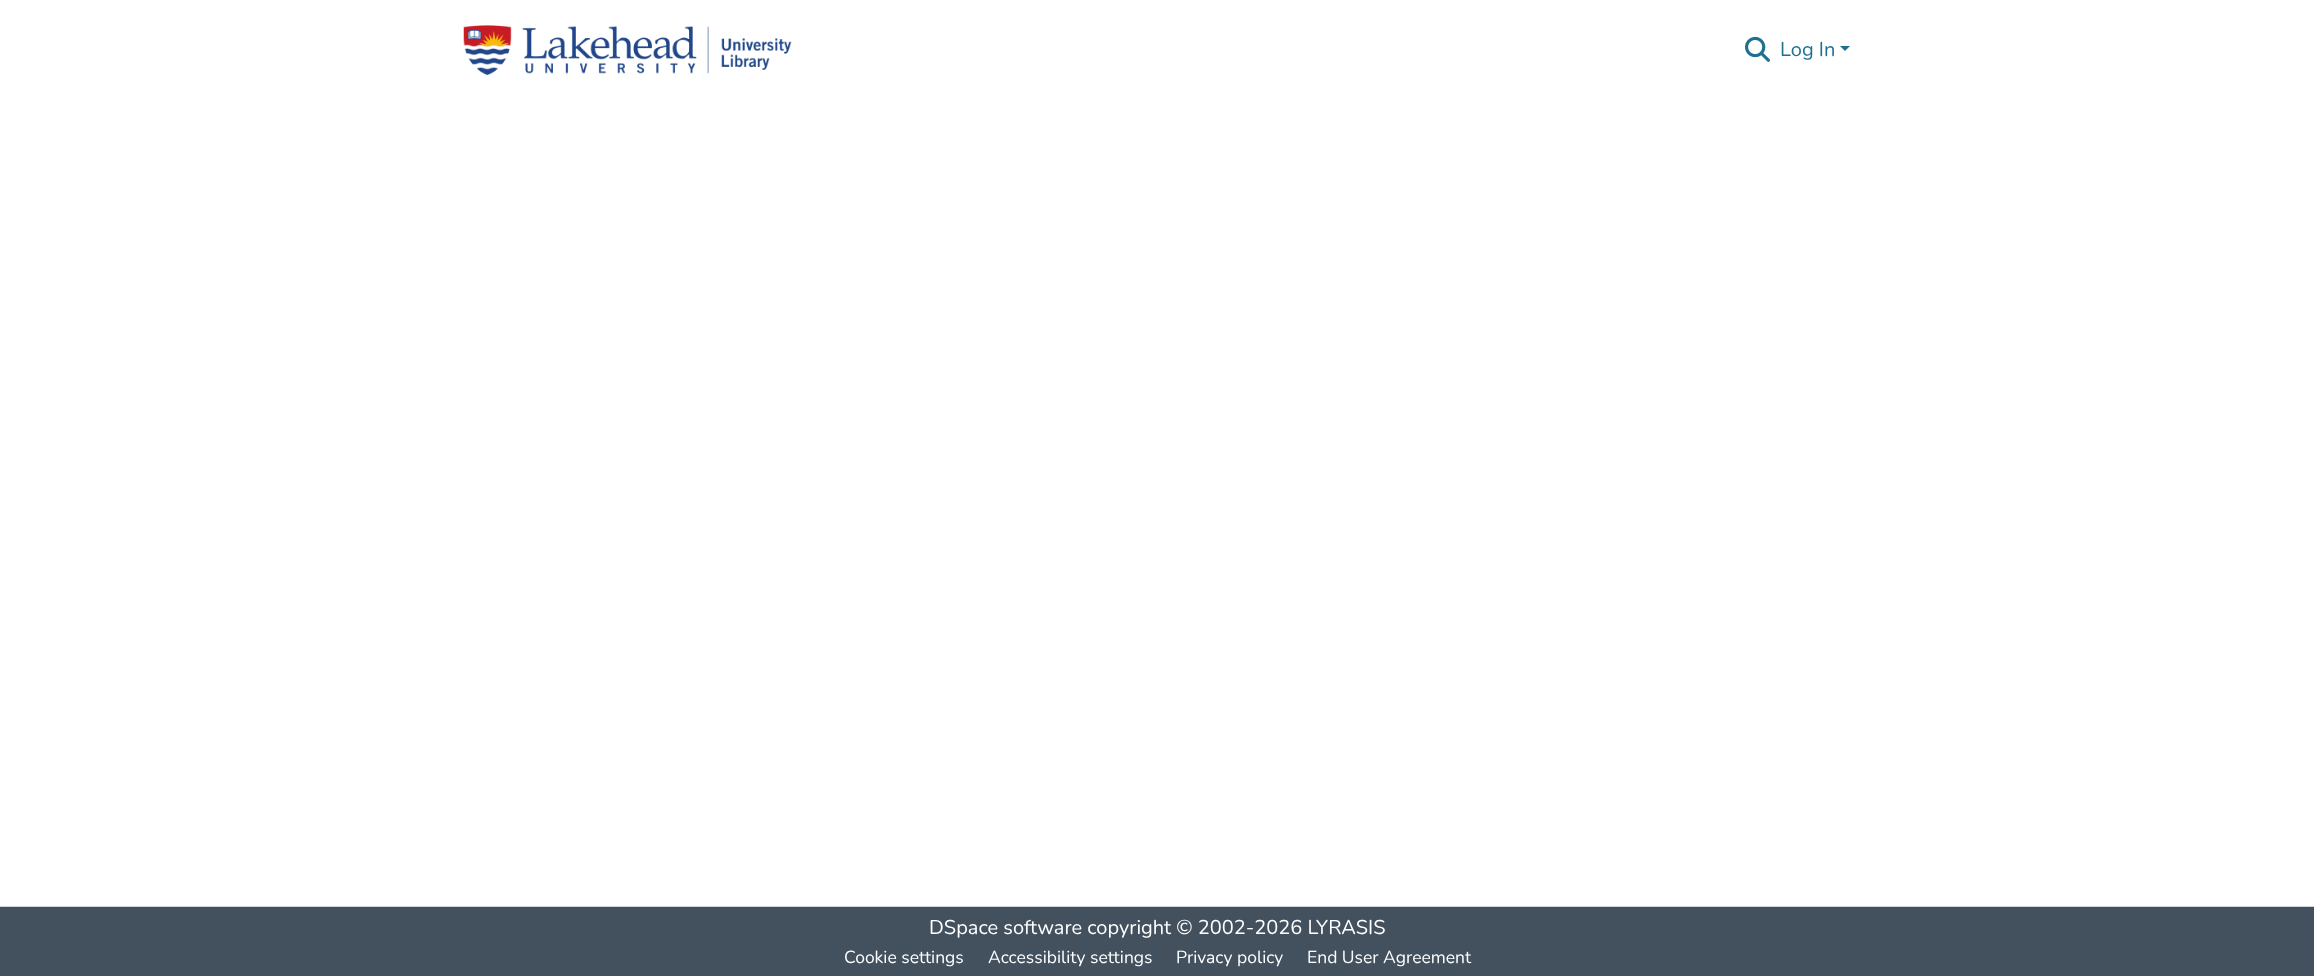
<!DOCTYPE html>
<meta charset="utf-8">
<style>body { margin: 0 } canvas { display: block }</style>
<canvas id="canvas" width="2314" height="976"></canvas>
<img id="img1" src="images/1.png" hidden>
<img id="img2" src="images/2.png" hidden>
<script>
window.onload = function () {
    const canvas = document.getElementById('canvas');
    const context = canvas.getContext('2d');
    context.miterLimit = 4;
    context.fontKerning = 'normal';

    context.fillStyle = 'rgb(255, 255, 255)';
    context.fillRect(0, 0, 2314, 976);
    context.drawImage(document.getElementById('img1'), 463, 25, 329, 50);
    context.drawImage(document.getElementById('img2'), 1745, 36, 25, 26);
    context.fillStyle = 'rgb(30, 111, 144)';
    context.beginPath();
    context.moveTo(1840, 46);
    context.lineTo(1850, 46);
    context.lineTo(1845, 51);
    context.closePath();
    context.fill();
    context.fillStyle = 'rgb(67, 81, 95)';
    context.fillRect(0, 907, 2314, 69);
    context.fillStyle = 'rgb(206, 212, 218)';
    context.fillRect(0, 906, 2314, 1);
    context.fillStyle = 'rgb(73, 80, 87)';
    context.fillRect(975, 943, 1, 28);
    context.fillRect(1164, 943, 1, 28);
    context.fillRect(1295, 943, 1, 28);
    context.font = '20px Nunito';
    context.fillStyle = 'rgb(30, 111, 144)';
    context.fillText('Log In', 1780, 56);
    context.fillStyle = 'rgb(255, 255, 255)';
    context.fillText('DSpace software copyright © 2002-2026 LYRASIS', 929, 934);
    context.font = '17.5px Nunito';
    context.fillText('Cookie settings', 844, 963);
    context.fillText('Accessibility settings', 988, 963);
    context.fillText('Privacy policy', 1176, 963);
    context.fillText('End User Agreement', 1307, 963);
};
</script>
